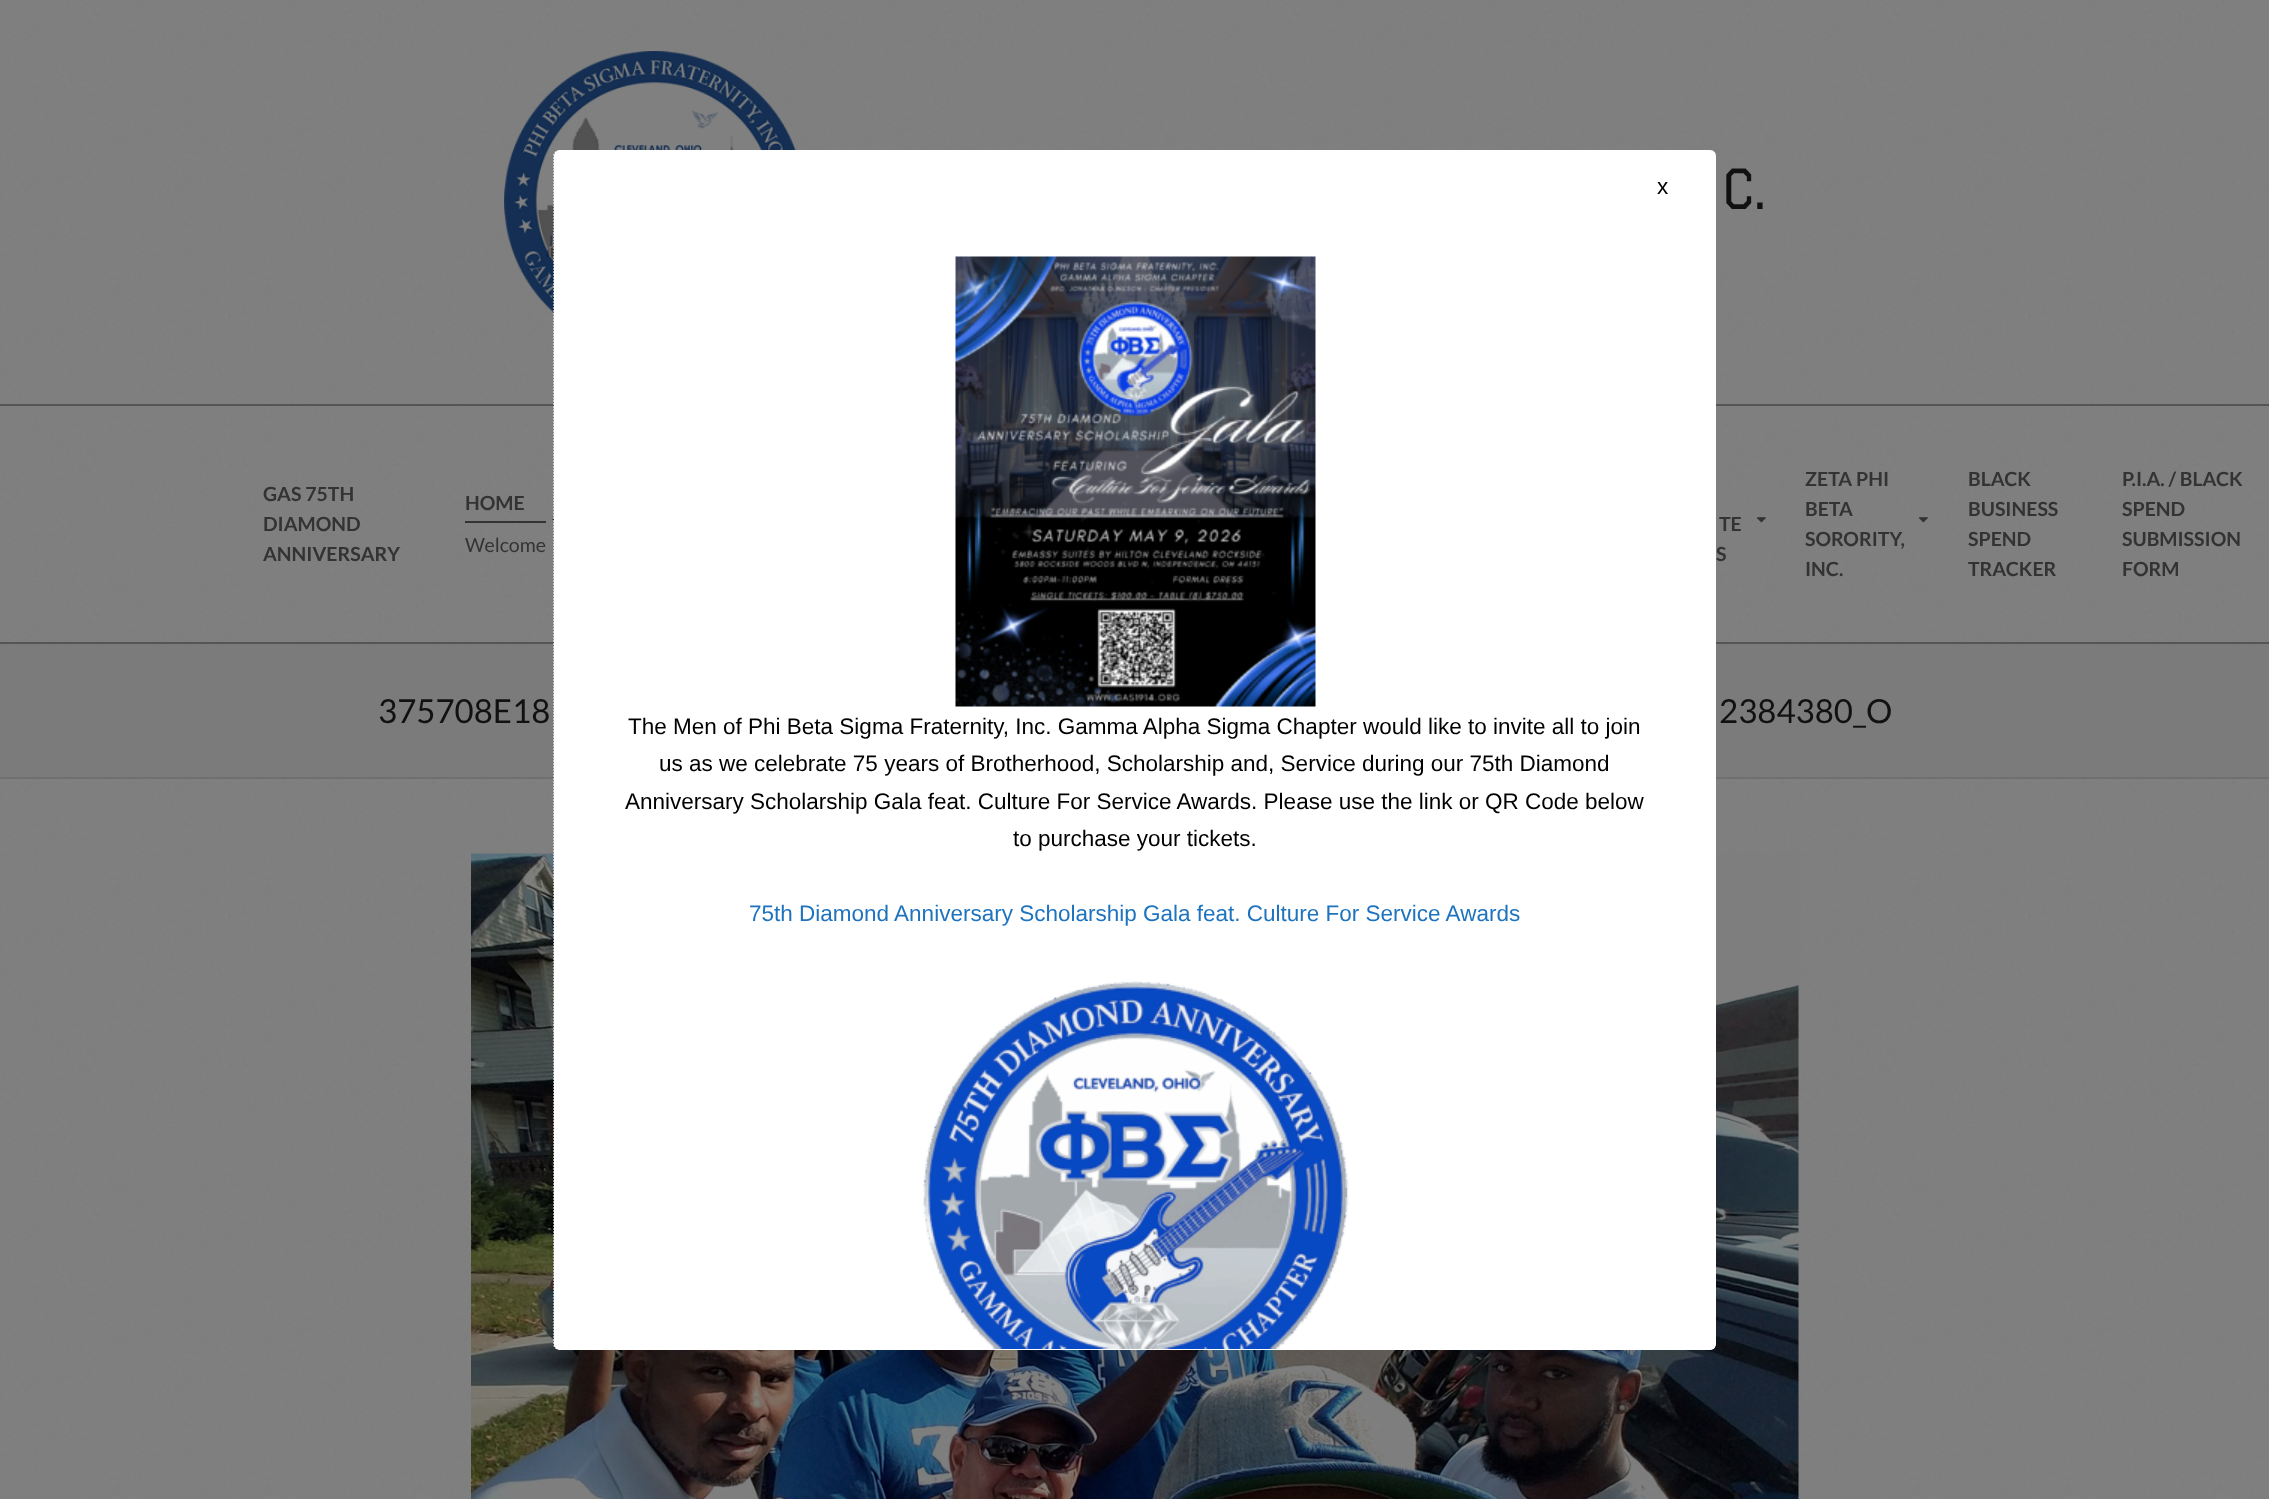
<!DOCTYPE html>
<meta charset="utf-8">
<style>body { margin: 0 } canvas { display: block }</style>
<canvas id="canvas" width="2269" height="1499"></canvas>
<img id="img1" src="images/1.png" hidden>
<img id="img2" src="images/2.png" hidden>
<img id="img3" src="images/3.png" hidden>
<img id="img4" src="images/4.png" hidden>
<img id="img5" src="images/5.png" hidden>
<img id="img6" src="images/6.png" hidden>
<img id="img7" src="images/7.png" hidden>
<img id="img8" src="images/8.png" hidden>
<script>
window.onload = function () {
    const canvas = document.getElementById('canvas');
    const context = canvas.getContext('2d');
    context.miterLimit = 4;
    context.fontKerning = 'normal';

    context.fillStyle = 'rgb(128, 128, 128)';
    context.fillRect(0, 0, 2269, 1499);
    context.drawImage(document.getElementById('img1'), 0, 0, 2269, 1498);
    context.fillStyle = 'rgb(85, 85, 85)';
    context.fillRect(0, 404, 2269, 2);
    context.drawImage(document.getElementById('img2'), 504, 51, 293, 262);
    context.fillRect(0, 642, 2269, 2);
    context.drawImage(document.getElementById('img3'), 552, 518, 2, 3);
    context.fillStyle = 'rgb(51, 51, 51)';
    context.fillRect(465, 521, 81, 2);
    context.drawImage(document.getElementById('img4'), 1756, 517, 10, 6);
    context.drawImage(document.getElementById('img5'), 1918, 517, 10, 6);
    context.fillStyle = 'rgb(123, 123, 123)';
    context.fillRect(0, 644, 2269, 133);
    context.fillStyle = 'rgb(111, 111, 111)';
    context.fillRect(0, 777, 2269, 2);
    context.drawImage(document.getElementById('img6'), 471, 853, 1328, 646);
    context.fillStyle = 'rgb(255, 255, 255)';
    context.beginPath();
    context.roundRect(554, 150, 1162, 1200, 6);
    context.fill();
    context.beginPath();
    context.moveTo(559.5, 151);
    context.lineTo(1710, 151);
    context.bezierCurveTo(1713, 151, 1715, 153, 1715, 156);
    context.lineTo(1715, 1344);
    context.bezierCurveTo(1715, 1347, 1713, 1349, 1710, 1349);
    context.lineTo(559.5, 1349);
    context.bezierCurveTo(556.5, 1349, 554, 1347, 554, 1344);
    context.lineTo(554, 156);
    context.bezierCurveTo(554, 153, 556.5, 151, 559.5, 151);
    context.closePath();
    context.strokeStyle = 'rgb(255, 255, 255)';
    context.lineWidth = 1.5;
    context.setLineDash([1.5, 1.5]);
    context.stroke();
    context.drawImage(document.getElementById('img7'), 955, 256, 361, 451);
    context.drawImage(document.getElementById('img8'), 922, 981, 427, 368);
    context.font = '54px Graduate';
    context.fillStyle = 'rgb(17, 17, 17)';
    context.fillText('C.', 1722, 209);
    context.font = 'bold 19.5px Lato';
    context.fillStyle = 'rgb(51, 51, 51)';
    context.fillText('GAS 75TH', 263, 501);
    context.fillText('DIAMOND', 263, 531);
    context.fillText('ANNIVERSARY', 263, 561);
    context.fillText('HOME', 465, 510);
    context.font = '19.5px Lato';
    context.fillText('Welcome', 465, 552);
    context.font = 'bold 19.5px Lato';
    context.fillText('TE', 1719, 531);
    context.fillText('S', 1716, 561);
    context.fillText('ZETA PHI', 1805, 486);
    context.fillText('BETA', 1805, 516);
    context.fillText('SORORITY,', 1805, 546);
    context.fillText('INC.', 1805, 576);
    context.fillText('BLACK', 1968, 486);
    context.fillText('BUSINESS', 1968, 516);
    context.fillText('SPEND', 1968, 546);
    context.fillText('TRACKER', 1968, 576);
    context.fillText('P.I.A. / BLACK', 2122, 486);
    context.fillText('SPEND', 2122, 516);
    context.fillText('SUBMISSION', 2122, 546);
    context.fillText('FORM', 2122, 576);
    context.font = '33px Lato';
    context.fillStyle = 'rgb(17, 17, 17)';
    context.fillText('375708E18', 378, 723);
    context.fillText('2384380_O', 1719, 723);
    context.font = '22.5px Liberation Sans';
    context.fillStyle = 'rgb(0, 0, 0)';
    context.fillText('x', 1657, 194);
    context.fillText('The Men of Phi Beta Sigma Fraternity, Inc. Gamma Alpha Sigma Chapter would like to invite all to join', 628, 734);
    context.fillText('us as we celebrate 75 years of Brotherhood, Scholarship and, Service during our 75th Diamond', 659, 771);
    context.fillText('Anniversary Scholarship Gala feat. Culture For Service Awards. Please use the link or QR Code below', 625, 809);
    context.fillText('to purchase your tickets.', 1013, 846);
    context.fillStyle = 'rgb(30, 115, 190)';
    context.fillText('75th Diamond Anniversary Scholarship Gala feat. Culture For Service Awards', 749, 921);
};
</script>
